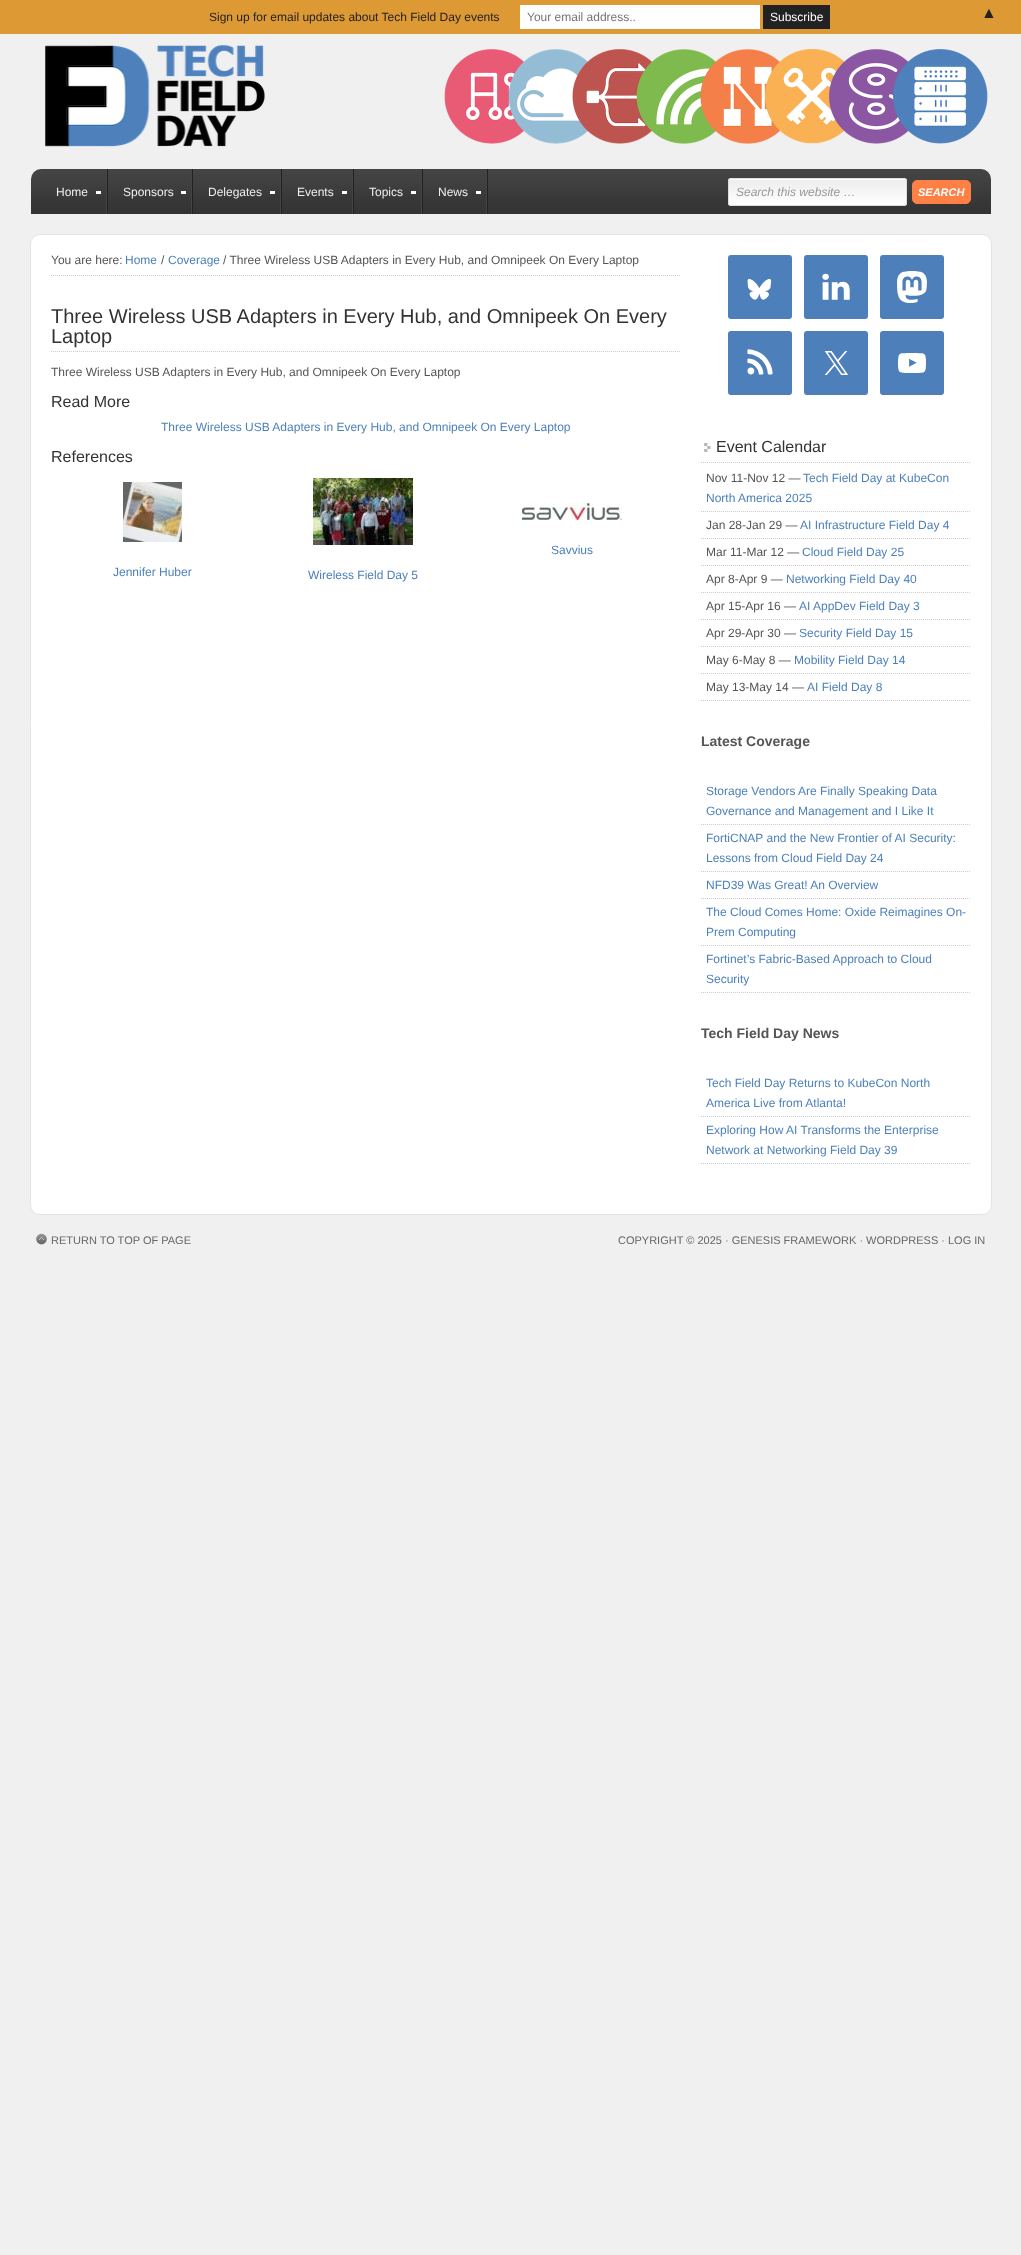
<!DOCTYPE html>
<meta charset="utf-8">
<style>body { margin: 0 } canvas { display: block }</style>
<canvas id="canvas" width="1021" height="2255"></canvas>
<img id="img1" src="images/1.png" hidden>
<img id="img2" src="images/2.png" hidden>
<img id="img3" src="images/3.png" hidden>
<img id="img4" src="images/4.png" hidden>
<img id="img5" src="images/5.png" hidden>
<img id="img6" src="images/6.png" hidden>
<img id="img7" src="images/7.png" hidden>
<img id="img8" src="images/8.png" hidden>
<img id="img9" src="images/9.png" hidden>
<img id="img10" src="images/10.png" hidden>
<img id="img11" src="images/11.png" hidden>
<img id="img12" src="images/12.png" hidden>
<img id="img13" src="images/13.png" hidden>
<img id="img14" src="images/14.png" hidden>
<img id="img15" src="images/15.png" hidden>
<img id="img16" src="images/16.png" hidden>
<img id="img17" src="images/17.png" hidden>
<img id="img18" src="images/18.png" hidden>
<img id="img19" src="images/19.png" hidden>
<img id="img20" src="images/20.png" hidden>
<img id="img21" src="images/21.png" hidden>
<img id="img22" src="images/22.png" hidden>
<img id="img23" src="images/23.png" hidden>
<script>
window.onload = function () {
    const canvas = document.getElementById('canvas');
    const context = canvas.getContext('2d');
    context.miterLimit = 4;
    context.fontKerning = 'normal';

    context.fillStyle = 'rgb(240, 240, 240)';
    context.fillRect(0, 0, 1021, 2255);
    context.fillStyle = 'rgb(221, 153, 51)';
    context.fillRect(0, 0, 1021, 34);
    context.fillStyle = 'rgb(255, 255, 255)';
    context.fillRect(520, 5, 240, 24);
    context.fillStyle = 'rgb(34, 34, 34)';
    context.fillRect(763, 5, 67, 24);
    context.drawImage(document.getElementById('img1'), 45, 45, 220, 102);
    context.drawImage(document.getElementById('img2'), 444, 49, 77, 95);
    context.drawImage(document.getElementById('img3'), 521, 49, 65, 95);
    context.drawImage(document.getElementById('img4'), 586, 49, 65, 95);
    context.drawImage(document.getElementById('img5'), 651, 49, 65, 95);
    context.drawImage(document.getElementById('img6'), 716, 49, 65, 95);
    context.drawImage(document.getElementById('img7'), 781, 49, 65, 95);
    context.drawImage(document.getElementById('img8'), 846, 49, 65, 95);
    context.drawImage(document.getElementById('img9'), 911, 49, 77, 95);
    context.drawImage(document.getElementById('img10'), 31, 169, 960, 45);
    context.drawImage(document.getElementById('img11'), 106, 169, 2, 45);
    context.fillStyle = 'rgb(255, 255, 255)';
    context.fillRect(96, 191, 5, 3);
    context.drawImage(document.getElementById('img11'), 191, 169, 2, 45);
    context.fillRect(181, 191, 5, 3);
    context.drawImage(document.getElementById('img11'), 280, 169, 2, 45);
    context.fillRect(270, 191, 5, 3);
    context.drawImage(document.getElementById('img11'), 352, 169, 2, 45);
    context.fillRect(342, 191, 5, 3);
    context.drawImage(document.getElementById('img11'), 421, 169, 2, 45);
    context.fillRect(411, 191, 5, 3);
    context.drawImage(document.getElementById('img11'), 486, 169, 2, 45);
    context.fillRect(476, 191, 5, 3);
    context.drawImage(document.getElementById('img12'), 728, 178, 179, 28);
    context.beginPath();
    context.roundRect(728.5, 178.5, 178, 27, 2.5);
    context.strokeStyle = 'rgb(221, 221, 221)';
    context.stroke();
    context.fillStyle = 'rgb(255, 128, 69)';
    context.beginPath();
    context.roundRect(912.5, 180.5, 58, 23, 4.5);
    context.fill();
    context.strokeStyle = 'rgb(255, 128, 69)';
    context.stroke();
    context.fillStyle = 'rgb(255, 255, 255)';
    context.beginPath();
    context.roundRect(30.5, 234.5, 961, 980, 9.5);
    context.fill();
    context.strokeStyle = 'rgb(228, 228, 228)';
    context.stroke();
    context.beginPath();
    context.moveTo(51, 275.5);
    context.lineTo(681, 275.5);
    context.strokeStyle = 'rgb(204, 204, 204)';
    context.setLineDash([1, 1]);
    context.stroke();
    context.beginPath();
    context.moveTo(51, 351.5);
    context.lineTo(681, 351.5);
    context.stroke();
    context.drawImage(document.getElementById('img13'), 522, 503, 100, 17);
    context.drawImage(document.getElementById('img14'), 123, 482, 59, 60);
    context.drawImage(document.getElementById('img15'), 313, 478, 100, 67);
    context.fillStyle = 'rgb(77, 128, 187)';
    context.beginPath();
    context.roundRect(728, 255, 64, 64, 3);
    context.fill();
    context.drawImage(document.getElementById('img16'), 747, 279, 25, 21);
    context.beginPath();
    context.roundRect(804, 255, 64, 64, 3);
    context.fill();
    context.drawImage(document.getElementById('img17'), 822, 273, 28, 27);
    context.beginPath();
    context.roundRect(880, 255, 64, 64, 3);
    context.fill();
    context.drawImage(document.getElementById('img18'), 897, 271, 30, 32);
    context.beginPath();
    context.roundRect(728, 331, 64, 64, 3);
    context.fill();
    context.drawImage(document.getElementById('img19'), 747, 349, 26, 26);
    context.beginPath();
    context.roundRect(804, 331, 64, 64, 3);
    context.fill();
    context.drawImage(document.getElementById('img20'), 824, 351, 24, 24);
    context.beginPath();
    context.roundRect(880, 331, 64, 64, 3);
    context.fill();
    context.drawImage(document.getElementById('img21'), 898, 353, 28, 20);
    context.drawImage(document.getElementById('img22'), 704, 443, 7, 9);
    context.beginPath();
    context.moveTo(701, 462.5);
    context.lineTo(971, 462.5);
    context.stroke();
    context.beginPath();
    context.moveTo(701, 511.5);
    context.lineTo(971, 511.5);
    context.stroke();
    context.beginPath();
    context.moveTo(701, 538.5);
    context.lineTo(971, 538.5);
    context.stroke();
    context.beginPath();
    context.moveTo(701, 565.5);
    context.lineTo(971, 565.5);
    context.stroke();
    context.beginPath();
    context.moveTo(701, 592.5);
    context.lineTo(971, 592.5);
    context.stroke();
    context.beginPath();
    context.moveTo(701, 619.5);
    context.lineTo(971, 619.5);
    context.stroke();
    context.beginPath();
    context.moveTo(701, 646.5);
    context.lineTo(971, 646.5);
    context.stroke();
    context.beginPath();
    context.moveTo(701, 673.5);
    context.lineTo(971, 673.5);
    context.stroke();
    context.beginPath();
    context.moveTo(701, 700.5);
    context.lineTo(971, 700.5);
    context.stroke();
    context.beginPath();
    context.moveTo(701, 824.5);
    context.lineTo(971, 824.5);
    context.stroke();
    context.beginPath();
    context.moveTo(701, 871.5);
    context.lineTo(971, 871.5);
    context.stroke();
    context.beginPath();
    context.moveTo(701, 898.5);
    context.lineTo(971, 898.5);
    context.stroke();
    context.beginPath();
    context.moveTo(701, 945.5);
    context.lineTo(971, 945.5);
    context.stroke();
    context.beginPath();
    context.moveTo(701, 992.5);
    context.lineTo(971, 992.5);
    context.stroke();
    context.beginPath();
    context.moveTo(701, 1116.5);
    context.lineTo(971, 1116.5);
    context.stroke();
    context.beginPath();
    context.moveTo(701, 1163.5);
    context.lineTo(971, 1163.5);
    context.stroke();
    context.drawImage(document.getElementById('img23'), 36, 1233, 11, 12);
    context.font = '12px Liberation Sans';
    context.fillStyle = 'rgb(34, 34, 34)';
    context.fillText('Sign up for email updates about Tech Field Day events', 209, 21);
    context.fillStyle = 'rgb(117, 117, 117)';
    context.fillText('Your email address..', 527, 21);
    context.fillStyle = 'rgb(255, 255, 255)';
    context.fillText('Subscribe', 770, 21);
    context.font = '16px Liberation Sans';
    context.fillStyle = 'rgb(34, 34, 34)';
    context.fillText('▲', 981, 18);
    context.font = '12px Liberation Sans';
    context.fillStyle = 'rgb(238, 238, 238)';
    context.fillText('Home', 56, 196);
    context.fillText('Sponsors', 123, 196);
    context.fillText('Delegates', 208, 196);
    context.fillText('Events', 297, 196);
    context.fillText('Topics', 369, 196);
    context.fillText('News', 438, 196);
    context.font = 'italic 12px Liberation Sans';
    context.fillStyle = 'rgb(153, 153, 153)';
    context.fillText('Search this website …', 736, 196);
    context.font = 'italic bold 11px Liberation Sans';
    context.fillStyle = 'rgb(255, 255, 255)';
    context.fillText('SEARCH', 918, 196);
    context.font = '12px Liberation Sans';
    context.fillStyle = 'rgb(85, 85, 85)';
    context.fillText('You are here:', 51, 264);
    context.fillStyle = 'rgb(77, 128, 187)';
    context.fillText('Home', 125, 264);
    context.fillStyle = 'rgb(85, 85, 85)';
    context.fillText('/', 161, 264);
    context.fillStyle = 'rgb(77, 128, 187)';
    context.fillText('Coverage', 168, 264);
    context.fillStyle = 'rgb(85, 85, 85)';
    context.fillText('/ Three Wireless USB Adapters in Every Hub, and Omnipeek On Every Laptop', 223, 264);
    context.font = '20px Liberation Sans';
    context.fillStyle = 'rgb(51, 51, 51)';
    context.fillText('Three Wireless USB Adapters in Every Hub, and Omnipeek On Every', 51, 323);
    context.fillText('Laptop', 51, 343);
    context.font = '12px Liberation Sans';
    context.fillStyle = 'rgb(85, 85, 85)';
    context.fillText('Three Wireless USB Adapters in Every Hub, and Omnipeek On Every Laptop', 51, 376);
    context.font = '16px Liberation Sans';
    context.fillStyle = 'rgb(51, 51, 51)';
    context.fillText('Read More', 51, 407);
    context.font = '12px Liberation Sans';
    context.fillStyle = 'rgb(77, 128, 187)';
    context.fillText('Three Wireless USB Adapters in Every Hub, and Omnipeek On Every Laptop', 161, 431);
    context.font = '16px Liberation Sans';
    context.fillStyle = 'rgb(51, 51, 51)';
    context.fillText('References', 51, 462);
    context.font = '12px Liberation Sans';
    context.fillStyle = 'rgb(77, 128, 187)';
    context.fillText('Savvius', 551, 554);
    context.fillText('Jennifer Huber', 113, 576);
    context.fillText('Wireless Field Day 5', 308, 579);
    context.font = '16px Liberation Sans';
    context.fillStyle = 'rgb(51, 51, 51)';
    context.fillText('Event Calendar', 716, 452);
    context.font = '12px Liberation Sans';
    context.fillStyle = 'rgb(85, 85, 85)';
    context.fillText('Nov 11-Nov 12 —', 706, 482);
    context.fillStyle = 'rgb(77, 128, 187)';
    context.fillText('Tech Field Day at KubeCon', 803, 482);
    context.fillText('North America 2025', 706, 502);
    context.fillStyle = 'rgb(85, 85, 85)';
    context.fillText('Jan 28-Jan 29 —', 706, 529);
    context.fillStyle = 'rgb(77, 128, 187)';
    context.fillText('AI Infrastructure Field Day 4', 800, 529);
    context.fillStyle = 'rgb(85, 85, 85)';
    context.fillText('Mar 11-Mar 12 —', 706, 556);
    context.fillStyle = 'rgb(77, 128, 187)';
    context.fillText('Cloud Field Day 25', 802, 556);
    context.fillStyle = 'rgb(85, 85, 85)';
    context.fillText('Apr 8-Apr 9 —', 706, 583);
    context.fillStyle = 'rgb(77, 128, 187)';
    context.fillText('Networking Field Day 40', 786, 583);
    context.fillStyle = 'rgb(85, 85, 85)';
    context.fillText('Apr 15-Apr 16 —', 706, 610);
    context.fillStyle = 'rgb(77, 128, 187)';
    context.fillText('AI AppDev Field Day 3', 799, 610);
    context.fillStyle = 'rgb(85, 85, 85)';
    context.fillText('Apr 29-Apr 30 —', 706, 637);
    context.fillStyle = 'rgb(77, 128, 187)';
    context.fillText('Security Field Day 15', 799, 637);
    context.fillStyle = 'rgb(85, 85, 85)';
    context.fillText('May 6-May 8 —', 706, 664);
    context.fillStyle = 'rgb(77, 128, 187)';
    context.fillText('Mobility Field Day 14', 794, 664);
    context.fillStyle = 'rgb(85, 85, 85)';
    context.fillText('May 13-May 14 —', 706, 691);
    context.fillStyle = 'rgb(77, 128, 187)';
    context.fillText('AI Field Day 8', 807, 691);
    context.font = 'bold 14px Liberation Sans';
    context.fillStyle = 'rgb(85, 85, 85)';
    context.fillText('Latest Coverage', 701, 746);
    context.font = '12px Liberation Sans';
    context.fillStyle = 'rgb(77, 128, 187)';
    context.fillText('Storage Vendors Are Finally Speaking Data', 706, 795);
    context.fillText('Governance and Management and I Like It', 706, 815);
    context.fillText('FortiCNAP and the New Frontier of AI Security:', 706, 842);
    context.fillText('Lessons from Cloud Field Day 24', 706, 862);
    context.fillText('NFD39 Was Great! An Overview', 706, 889);
    context.fillText('The Cloud Comes Home: Oxide Reimagines On-', 706, 916);
    context.fillText('Prem Computing', 706, 936);
    context.fillText('Fortinet’s Fabric-Based Approach to Cloud', 706, 963);
    context.fillText('Security', 706, 983);
    context.font = 'bold 14px Liberation Sans';
    context.fillStyle = 'rgb(85, 85, 85)';
    context.fillText('Tech Field Day News', 701, 1038);
    context.font = '12px Liberation Sans';
    context.fillStyle = 'rgb(77, 128, 187)';
    context.fillText('Tech Field Day Returns to KubeCon North', 706, 1087);
    context.fillText('America Live from Atlanta!', 706, 1107);
    context.fillText('Exploring How AI Transforms the Enterprise', 706, 1134);
    context.fillText('Network at Networking Field Day 39', 706, 1154);
    context.font = '11px Liberation Sans';
    context.fillStyle = 'rgb(102, 102, 102)';
    context.fillText('RETURN TO TOP OF PAGE', 51, 1244);
    context.fillText('COPYRIGHT © 2025 · GENESIS FRAMEWORK · WORDPRESS · LOG IN', 618, 1244);
};
</script>
